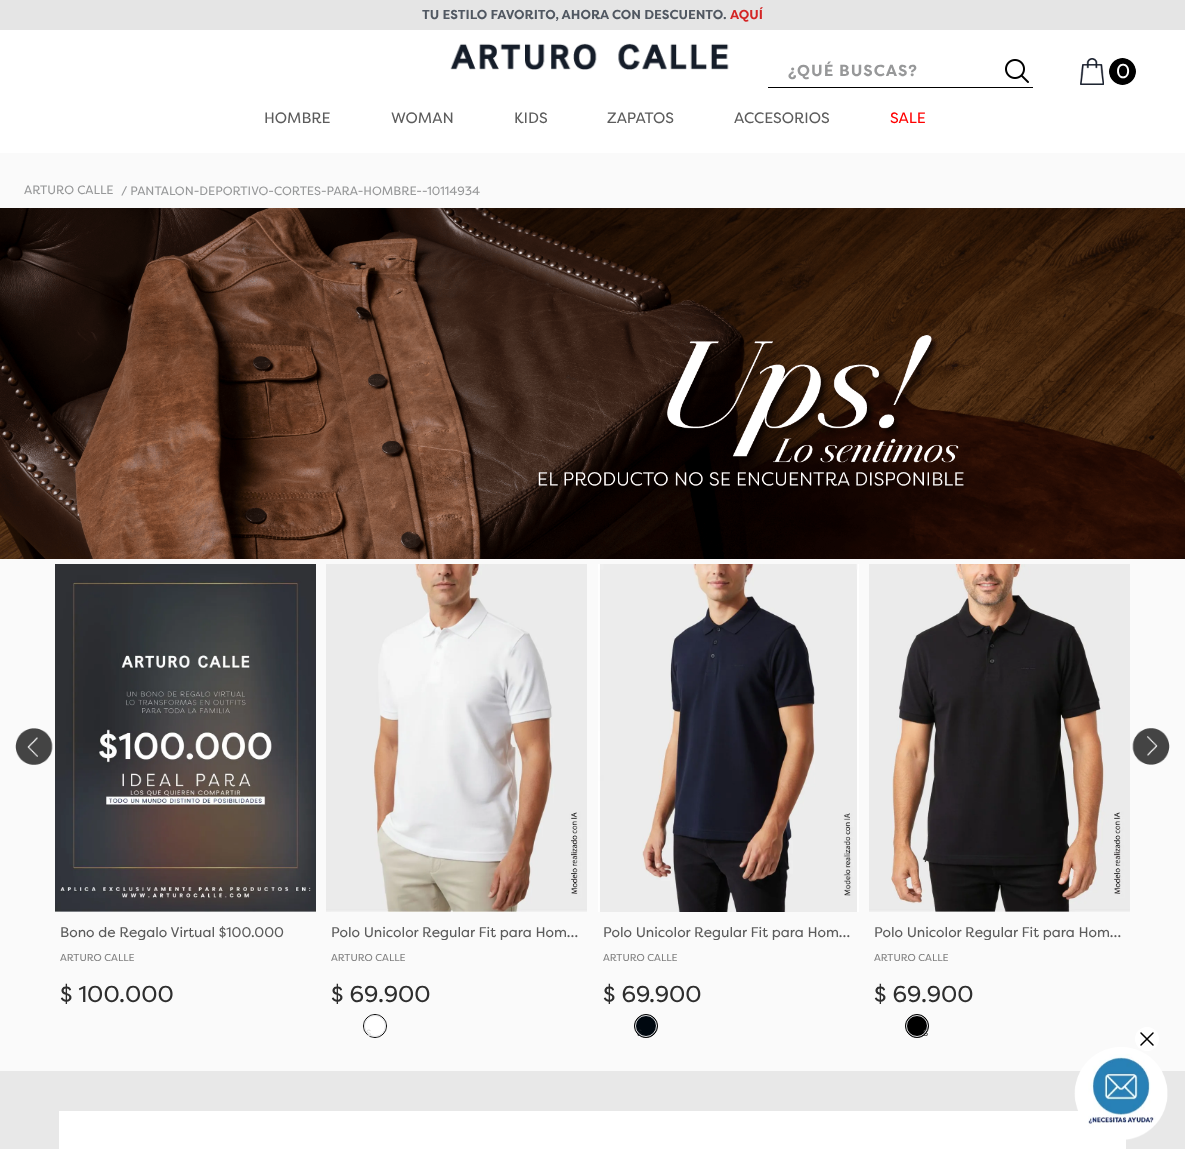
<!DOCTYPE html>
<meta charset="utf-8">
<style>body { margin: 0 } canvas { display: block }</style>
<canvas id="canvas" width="1185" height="1149"></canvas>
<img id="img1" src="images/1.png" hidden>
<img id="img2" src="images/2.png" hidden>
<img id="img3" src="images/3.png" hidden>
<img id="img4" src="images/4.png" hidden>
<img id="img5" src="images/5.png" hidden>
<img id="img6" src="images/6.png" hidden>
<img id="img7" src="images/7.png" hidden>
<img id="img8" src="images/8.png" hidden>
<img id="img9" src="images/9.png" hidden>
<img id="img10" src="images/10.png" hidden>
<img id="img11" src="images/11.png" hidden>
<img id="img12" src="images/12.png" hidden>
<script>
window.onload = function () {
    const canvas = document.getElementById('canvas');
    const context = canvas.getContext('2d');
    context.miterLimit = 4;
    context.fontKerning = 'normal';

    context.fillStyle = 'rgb(250, 250, 250)';
    context.fillRect(0, 0, 1185, 1149);
    context.fillStyle = 'rgb(255, 255, 255)';
    context.fillRect(0, 30, 1185, 123);
    context.fillStyle = 'rgb(229, 229, 229)';
    context.fillRect(0, 0, 1185, 30);
    context.drawImage(document.getElementById('img1'), 450, 43, 279, 27);
    context.fillStyle = 'rgb(0, 0, 0)';
    context.fillRect(768, 87, 265, 1);
    context.drawImage(document.getElementById('img2'), 1005, 59, 24, 24);
    context.drawImage(document.getElementById('img3'), 1080, 58, 24, 27);
    context.drawImage(document.getElementById('img4'), 1109, 58, 27, 27);
    context.drawImage(document.getElementById('img5'), 0, 208, 1185, 351);
    context.drawImage(document.getElementById('img6'), 15, 728, 38, 37);
    context.drawImage(document.getElementById('img7'), 1132, 728, 38, 37);
    context.drawImage(document.getElementById('img8'), 55, 564, 261, 348);
    context.drawImage(document.getElementById('img9'), 326, 564, 261, 348);
    context.fillStyle = 'rgb(255, 255, 255)';
    context.beginPath();
    context.arc(375, 1026, 11.5, 0, 2 * Math.PI);
    context.fill();
    context.strokeStyle = 'rgb(0, 0, 0)';
    context.stroke();
    context.drawImage(document.getElementById('img10'), 598, 564, 261, 348);
    context.fillStyle = 'rgb(0, 8, 16)';
    context.beginPath();
    context.arc(646, 1026, 11.5, 0, 2 * Math.PI);
    context.fill();
    context.stroke();
    context.drawImage(document.getElementById('img11'), 869, 564, 261, 348);
    context.fillStyle = 'rgb(0, 0, 0)';
    context.beginPath();
    context.arc(917, 1026, 11.5, 0, 2 * Math.PI);
    context.fill();
    context.stroke();
    context.fillStyle = 'rgb(232, 232, 232)';
    context.fillRect(0, 1071, 1185, 78);
    context.fillStyle = 'rgb(255, 255, 255)';
    context.fillRect(59, 1111, 1067, 38);
    context.drawImage(document.getElementById('img12'), 1074, 1047, 94, 93);
    context.beginPath();
    context.arc(1147, 1039, 12, 0, 2 * Math.PI);
    context.fill();
    context.beginPath();
    context.moveTo(1153, 1033);
    context.lineTo(1141, 1045);
    context.moveTo(1141, 1033);
    context.lineTo(1153, 1045);
    context.lineWidth = 1.5;
    context.lineCap = 'round';
    context.lineJoin = 'round';
    context.stroke();
    context.font = 'bold 13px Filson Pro';
    context.fillStyle = 'rgb(81, 88, 98)';
    context.fillText('TU ESTILO FAVORITO, AHORA CON DESCUENTO.', 422, 19);
    context.fillStyle = 'rgb(212, 38, 38)';
    context.fillText('AQUÍ', 730, 19);
    context.letterSpacing = '1px';
    context.font = 'bold 16px Filson Pro';
    context.fillStyle = 'rgb(151, 152, 153)';
    context.fillText('¿QUÉ BUSCAS?', 788, 76);
    context.letterSpacing = '0px';
    context.font = '20px Filson Pro';
    context.fillStyle = 'rgb(255, 255, 255)';
    context.fillText('0', 1116, 78);
    context.font = '15px Filson Pro';
    context.fillStyle = 'rgb(92, 92, 92)';
    context.fillText('HOMBRE', 264, 123);
    context.fillText('WOMAN', 391, 123);
    context.fillText('KIDS', 514, 123);
    context.fillText('ZAPATOS', 607, 123);
    context.fillText('ACCESORIOS', 734, 123);
    context.fillStyle = 'rgb(255, 0, 0)';
    context.fillText('SALE', 890, 123);
    context.font = '12px Filson Pro';
    context.fillStyle = 'rgb(151, 152, 153)';
    context.fillText('ARTURO CALLE', 24, 194);
    context.fillText('/ PANTALON-DEPORTIVO-CORTES-PARA-HOMBRE--10114934', 121, 195);
    context.save();
    context.beginPath();
    context.rect(60, 924, 224, 16);
    context.clip();
    context.font = '14px Filson Pro';
    context.fillStyle = 'rgb(92, 92, 92)';
    context.fillText('Bono de Regalo Virtual $100.000', 60, 937);
    context.restore();
    context.font = '10px Filson Pro';
    context.fillStyle = 'rgb(128, 128, 128)';
    context.fillText('ARTURO CALLE', 60, 961);
    context.font = '23px Filson Pro';
    context.fillStyle = 'rgb(46, 46, 46)';
    context.fillText('$ 100', 60, 1002);
    context.fillText('.', 119, 1002);
    context.fillText('000', 125, 1002);
    context.save();
    context.beginPath();
    context.rect(331, 924, 251, 16);
    context.clip();
    context.font = '14px Filson Pro';
    context.fillStyle = 'rgb(92, 92, 92)';
    context.fillText('Polo Unicolor Regular Fit para Hom…', 331, 937);
    context.restore();
    context.font = '10px Filson Pro';
    context.fillStyle = 'rgb(128, 128, 128)';
    context.fillText('ARTURO CALLE', 331, 961);
    context.font = '23px Filson Pro';
    context.fillStyle = 'rgb(46, 46, 46)';
    context.fillText('$ 69', 331, 1002);
    context.fillText('.900', 378, 1002);
    context.font = '9px Filson Pro';
    context.fillStyle = 'rgb(224, 224, 224)';
    context.fillText('S', 366, 1036);
    context.beginPath();
    context.arc(375, 1026, 10.5, 0, 2 * Math.PI);
    context.strokeStyle = 'rgb(227, 228, 230)';
    context.lineWidth = 1;
    context.stroke();
    context.save();
    context.beginPath();
    context.rect(603, 924, 251, 16);
    context.clip();
    context.font = '14px Filson Pro';
    context.fillStyle = 'rgb(92, 92, 92)';
    context.fillText('Polo Unicolor Regular Fit para Hom…', 603, 937);
    context.restore();
    context.font = '10px Filson Pro';
    context.fillStyle = 'rgb(128, 128, 128)';
    context.fillText('ARTURO CALLE', 603, 961);
    context.font = '23px Filson Pro';
    context.fillStyle = 'rgb(46, 46, 46)';
    context.fillText('$ 69', 603, 1002);
    context.fillText('.900', 649, 1002);
    context.font = '9px Filson Pro';
    context.fillStyle = 'rgb(23, 29, 35)';
    context.fillText('S', 637, 1036);
    context.beginPath();
    context.arc(646, 1026, 10.5, 0, 2 * Math.PI);
    context.stroke();
    context.save();
    context.beginPath();
    context.rect(874, 924, 251, 16);
    context.clip();
    context.font = '14px Filson Pro';
    context.fillStyle = 'rgb(92, 92, 92)';
    context.fillText('Polo Unicolor Regular Fit para Hom…', 874, 937);
    context.restore();
    context.font = '10px Filson Pro';
    context.fillStyle = 'rgb(128, 128, 128)';
    context.fillText('ARTURO CALLE', 874, 961);
    context.font = '23px Filson Pro';
    context.fillStyle = 'rgb(46, 46, 46)';
    context.fillText('$ 69', 874, 1002);
    context.fillText('.900', 921, 1002);
    context.font = '9px Filson Pro';
    context.fillStyle = 'rgb(70, 70, 70)';
    context.fillText('S', 923, 1036);
    context.beginPath();
    context.arc(917, 1026, 10.5, 0, 2 * Math.PI);
    context.stroke();
};
</script>
